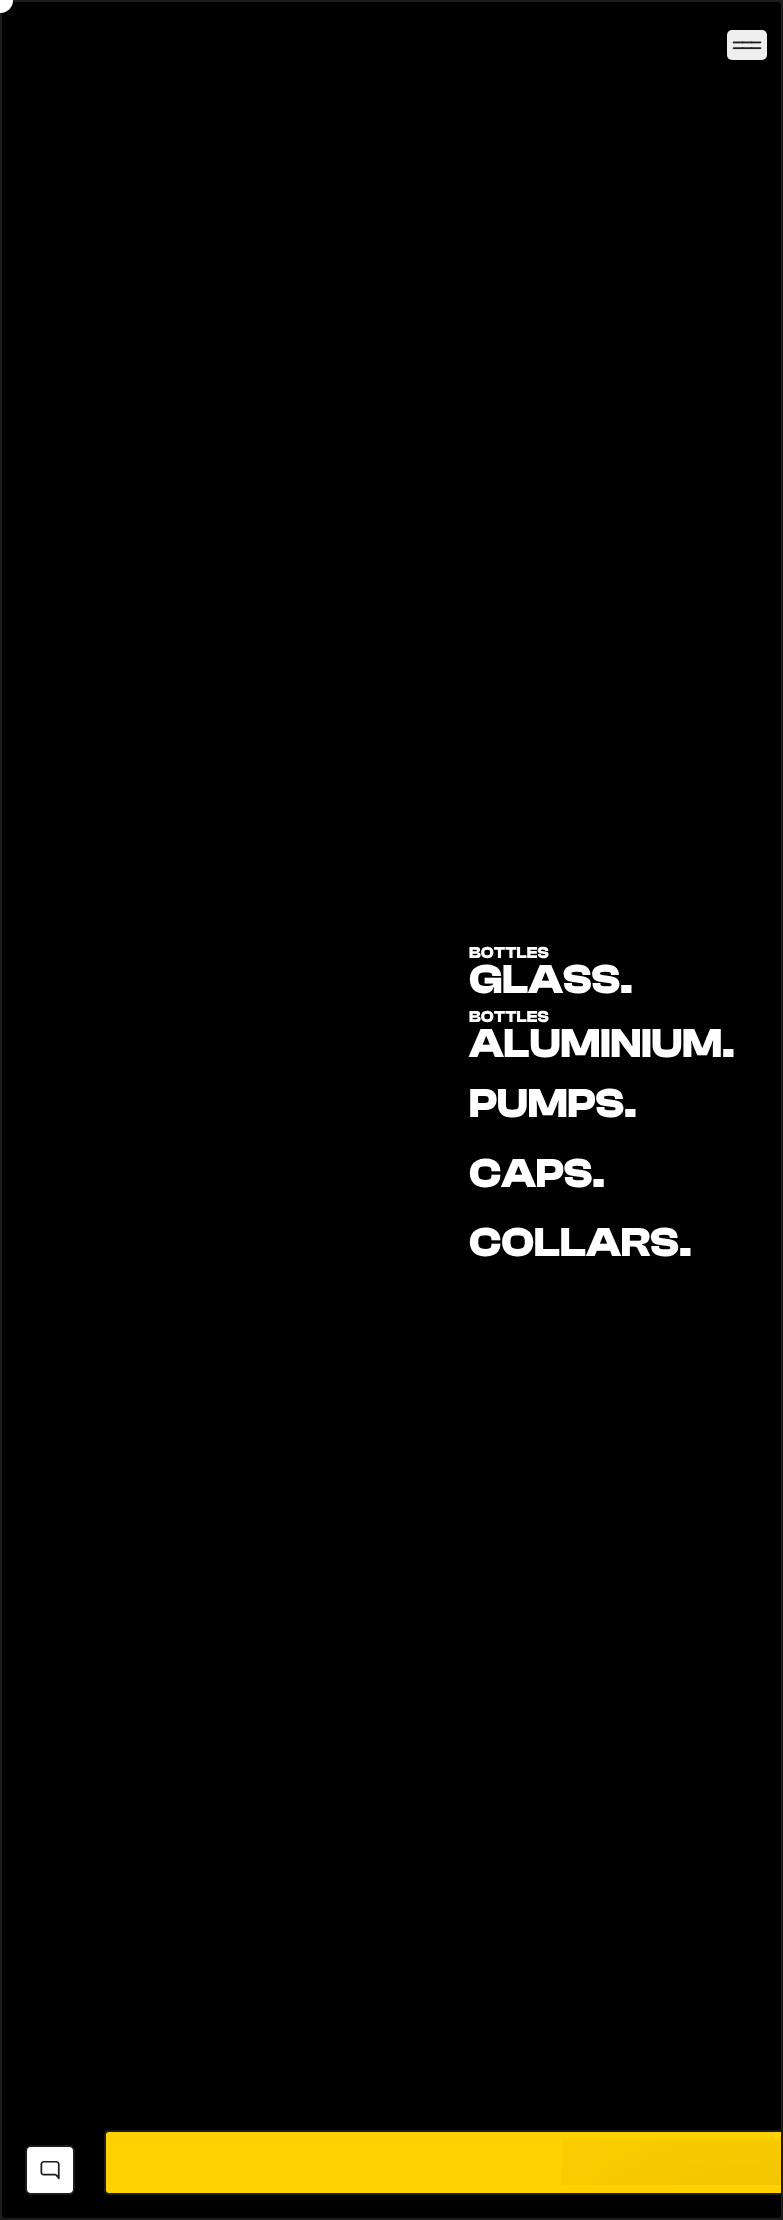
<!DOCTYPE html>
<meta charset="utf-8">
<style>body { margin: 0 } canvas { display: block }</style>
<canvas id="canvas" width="783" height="2220"></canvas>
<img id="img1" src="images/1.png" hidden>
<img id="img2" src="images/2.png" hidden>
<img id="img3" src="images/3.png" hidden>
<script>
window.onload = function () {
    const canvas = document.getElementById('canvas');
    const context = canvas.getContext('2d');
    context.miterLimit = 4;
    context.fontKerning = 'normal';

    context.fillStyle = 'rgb(27, 28, 29)';
    context.fillRect(0, 0, 783, 2220);
    context.fillStyle = 'rgb(0, 0, 0)';
    context.beginPath();
    context.roundRect(2, 2, 779, 2216, 4);
    context.fill();
    context.fillStyle = 'rgb(255, 255, 255)';
    context.beginPath();
    context.arc(0.5, 0.5, 12.5, 0, 2 * Math.PI);
    context.fill();
    context.fillStyle = 'rgb(238, 238, 238)';
    context.beginPath();
    context.roundRect(727, 30, 40, 30, 5);
    context.fill();
    context.drawImage(document.getElementById('img1'), 732, 41, 30, 9);
    context.fillStyle = 'rgb(255, 255, 255)';
    context.beginPath();
    context.roundRect(26, 2146, 48, 48, 5);
    context.fill();
    context.strokeStyle = 'rgb(27, 28, 29)';
    context.lineWidth = 2;
    context.stroke();
    context.drawImage(document.getElementById('img2'), 40, 2161, 20, 19);
    context.fillStyle = 'rgb(255, 209, 0)';
    context.beginPath();
    context.roundRect(105, 2131, 677, 63, [4, 0, 0, 4]);
    context.fill();
    context.stroke();
    context.save();
    context.beginPath();
    context.roundRect(104, 2130, 679, 65, [5, 0, 0, 5]);
    context.clip();
    context.fillStyle = 'rgb(27, 28, 29)';
    context.fillRect(104, 2130, 679, 2);
    context.restore();
    context.drawImage(document.getElementById('img3'), 562, 2140, 219, 45);
    context.save();
    context.beginPath();
    context.roundRect(104, 2130, 679, 65, [5, 0, 0, 5]);
    context.clip();
    context.fillStyle = 'rgb(27, 28, 29)';
    context.fillRect(104, 2193, 679, 2);
    context.restore();
    context.font = 'bold 16.5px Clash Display';
    context.fillStyle = 'rgb(255, 255, 255)';
    context.fillText('BOTTLES', 469, 958);
    context.font = 'bold 41.75px Clash Display';
    context.fillText('GLASS.', 469, 993);
    context.font = 'bold 16.5px Clash Display';
    context.fillText('BOTTLES', 469, 1022);
    context.font = 'bold 41.75px Clash Display';
    context.fillText('ALUMINIUM.', 469, 1057);
    context.fillText('PUMPS.', 469, 1117);
    context.fillText('CAPS.', 469, 1187);
    context.fillText('COLLARS.', 469, 1256);
};
</script>
